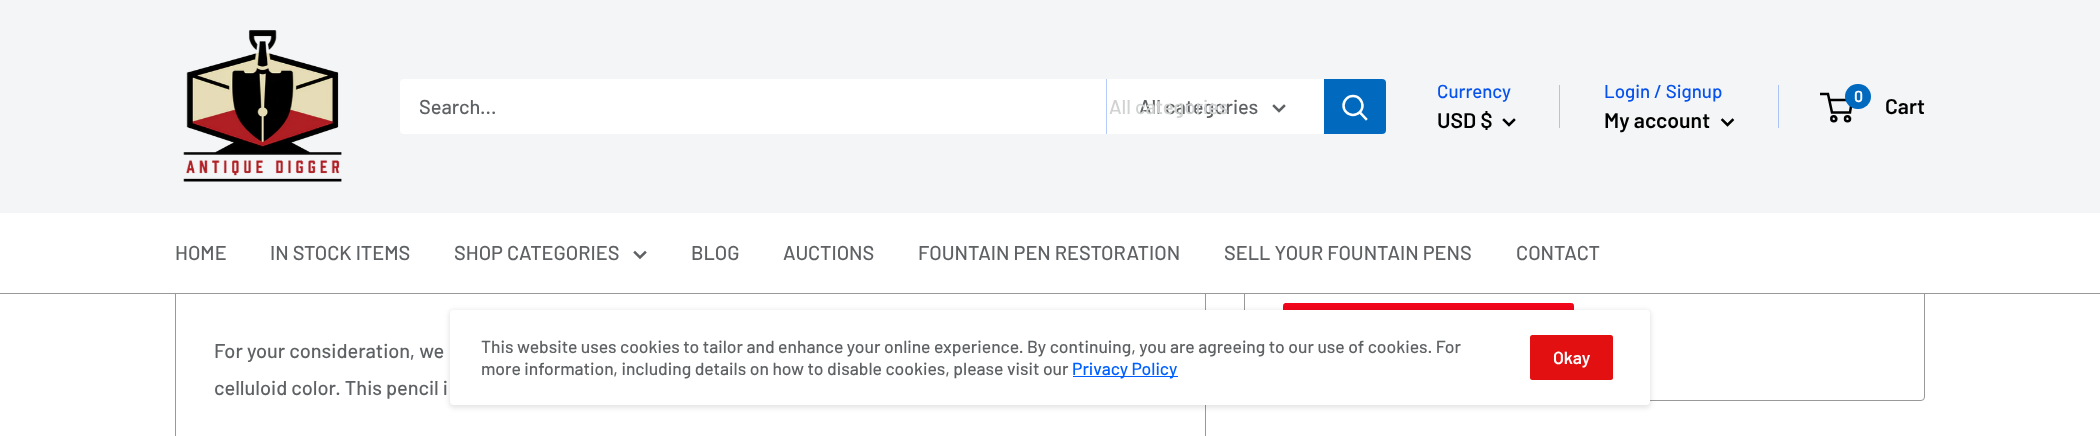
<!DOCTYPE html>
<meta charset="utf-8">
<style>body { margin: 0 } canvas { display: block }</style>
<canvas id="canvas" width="2100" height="436"></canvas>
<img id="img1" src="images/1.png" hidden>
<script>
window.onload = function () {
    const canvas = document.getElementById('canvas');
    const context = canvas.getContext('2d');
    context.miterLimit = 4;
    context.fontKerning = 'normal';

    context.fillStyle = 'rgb(255, 255, 255)';
    context.fillRect(0, 0, 2100, 436);
    context.beginPath();
    context.roundRect(1244.5, -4.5, 680, 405, 3.5);
    context.strokeStyle = 'rgb(153, 153, 153)';
    context.stroke();
    context.fillStyle = 'rgb(243, 245, 246)';
    context.fillRect(0, 0, 2100, 213);
    context.drawImage(document.getElementById('img1'), 183, 30, 159, 152);
    context.fillStyle = 'rgb(255, 255, 255)';
    context.beginPath();
    context.roundRect(400, 79, 986, 55, 4);
    context.fill();
    context.fillStyle = 'rgb(181, 203, 249)';
    context.fillRect(1106, 79, 1, 55);
    context.beginPath();
    context.moveTo(1284, 106);
    context.lineTo(1279, 111);
    context.lineTo(1274, 106);
    context.strokeStyle = 'rgb(95, 98, 100)';
    context.lineWidth = 2.5;
    context.lineCap = 'square';
    context.stroke();
    context.fillStyle = 'rgb(1, 106, 191)';
    context.beginPath();
    context.roundRect(1324, 79, 62, 55, [0, 4, 4, 0]);
    context.fill();
    context.beginPath();
    context.moveTo(1366, 119);
    context.lineTo(1360, 112.5);
    context.strokeStyle = 'rgb(255, 255, 255)';
    context.stroke();
    context.beginPath();
    context.arc(1353, 105.5, 9.5, 0, 2 * Math.PI);
    context.stroke();
    context.beginPath();
    context.moveTo(1514, 120);
    context.lineTo(1509, 125);
    context.lineTo(1504, 120);
    context.strokeStyle = 'rgb(0, 0, 0)';
    context.stroke();
    context.fillStyle = 'rgb(172, 196, 243)';
    context.fillRect(1559, 85, 1, 43);
    context.fillRect(1778, 85, 1, 43);
    context.beginPath();
    context.moveTo(1732.5, 120);
    context.lineTo(1727.5, 125);
    context.lineTo(1722.5, 120);
    context.stroke();
    context.beginPath();
    context.arc(1833.8, 118.8, 2.5, 0, 2 * Math.PI);
    context.stroke();
    context.beginPath();
    context.arc(1847.5, 118.8, 2.5, 0, 2 * Math.PI);
    context.stroke();
    context.beginPath();
    context.moveTo(1829, 100);
    context.lineTo(1852, 100);
    context.lineTo(1850, 112.5);
    context.lineTo(1832, 112.5);
    context.lineTo(1828, 94);
    context.lineTo(1820, 94);
    context.lineCap = 'butt';
    context.stroke();
    context.fillStyle = 'rgb(1, 106, 191)';
    context.beginPath();
    context.roundRect(1845, 84, 26, 25, 12.5);
    context.fill();
    context.strokeStyle = 'rgb(153, 153, 153)';
    context.lineWidth = 1;
    context.strokeRect(175.5, 223.5, 1030, 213);
    context.fillStyle = 'rgb(255, 255, 255)';
    context.fillRect(175, 213, 1750, 80);
    context.fillStyle = 'rgb(153, 153, 153)';
    context.fillRect(0, 293, 2100, 1);
    context.beginPath();
    context.moveTo(645, 252.5);
    context.lineTo(640, 257.5);
    context.lineTo(635, 252.5);
    context.strokeStyle = 'rgb(95, 98, 100)';
    context.lineWidth = 2.5;
    context.lineCap = 'square';
    context.stroke();
    context.fillStyle = 'rgb(241, 6, 27)';
    context.beginPath();
    context.roundRect(1283.5, 303.5, 290, 59, 2);
    context.fill();
    context.strokeStyle = 'rgb(241, 6, 27)';
    context.lineWidth = 1;
    context.stroke();
    context.fillStyle = 'rgba(0, 0, 0, 0.1)';
    context.filter = 'blur(2.5px)';
    context.beginPath();
    context.roundRect(449, 310, 1202, 98, 5);
    context.fill();
    context.filter = 'none';
    context.fillStyle = 'rgb(255, 255, 255)';
    context.beginPath();
    context.roundRect(450, 310, 1200, 95, 4);
    context.fill();
    context.fillStyle = 'rgb(0, 95, 255)';
    context.fillRect(1073, 376, 105, 1);
    context.fillStyle = 'rgb(226, 16, 16)';
    context.beginPath();
    context.roundRect(1530, 335, 83, 45, 2.5);
    context.fill();
    context.font = '500 20px Barlow';
    context.fillStyle = 'rgb(95, 98, 100)';
    context.fillText('Search...', 419, 114);
    context.fillText('All categories', 1139, 114);
    context.fillStyle = 'rgb(209, 210, 210)';
    context.fillText('All categories', 1109, 114);
    context.font = '500 18.75px Barlow';
    context.fillStyle = 'rgb(7, 82, 236)';
    context.fillText('Currency', 1437, 98);
    context.font = '600 21.25px Barlow';
    context.fillStyle = 'rgb(0, 0, 0)';
    context.fillText('USD $', 1437, 128);
    context.font = '500 18.75px Barlow';
    context.fillStyle = 'rgb(7, 82, 236)';
    context.fillText('Login / Signup', 1604, 98);
    context.font = '600 21.25px Barlow';
    context.fillStyle = 'rgb(0, 0, 0)';
    context.fillText('My account', 1604, 128);
    context.font = '600 16px Barlow';
    context.fillStyle = 'rgb(255, 255, 255)';
    context.fillText('0', 1854, 102);
    context.font = '600 21.25px Barlow';
    context.fillStyle = 'rgb(0, 0, 0)';
    context.fillText('Cart', 1885, 114);
    context.font = '500 20px Barlow';
    context.fillStyle = 'rgb(95, 98, 100)';
    context.fillText('HOME', 175, 260);
    context.fillText('IN STOCK ITEMS', 270, 260);
    context.fillText('SHOP CATEGORIES', 454, 260);
    context.fillText('BLOG', 691, 260);
    context.fillText('AUCTIONS', 783, 260);
    context.fillText('FOUNTAIN PEN RESTORATION', 918, 260);
    context.fillText('SELL YOUR FOUNTAIN PENS', 1224, 260);
    context.fillText('CONTACT', 1516, 260);
    context.fillText('For your consideration, we', 214, 358);
    context.fillText('celluloid color. This pencil i', 214, 395);
    context.font = '500 17.5px Barlow';
    context.fillText('This website uses cookies to tailor and enhance your online experience. By continuing, you are agreeing to our use of cookies. For', 481, 353);
    context.fillText('more information, including details on how to disable cookies, please visit our', 481, 375);
    context.fillStyle = 'rgb(0, 95, 255)';
    context.fillText('Privacy Policy', 1072, 375);
    context.font = '600 17.5px Barlow';
    context.fillStyle = 'rgb(255, 255, 255)';
    context.fillText('Okay', 1553, 364);
};
</script>
